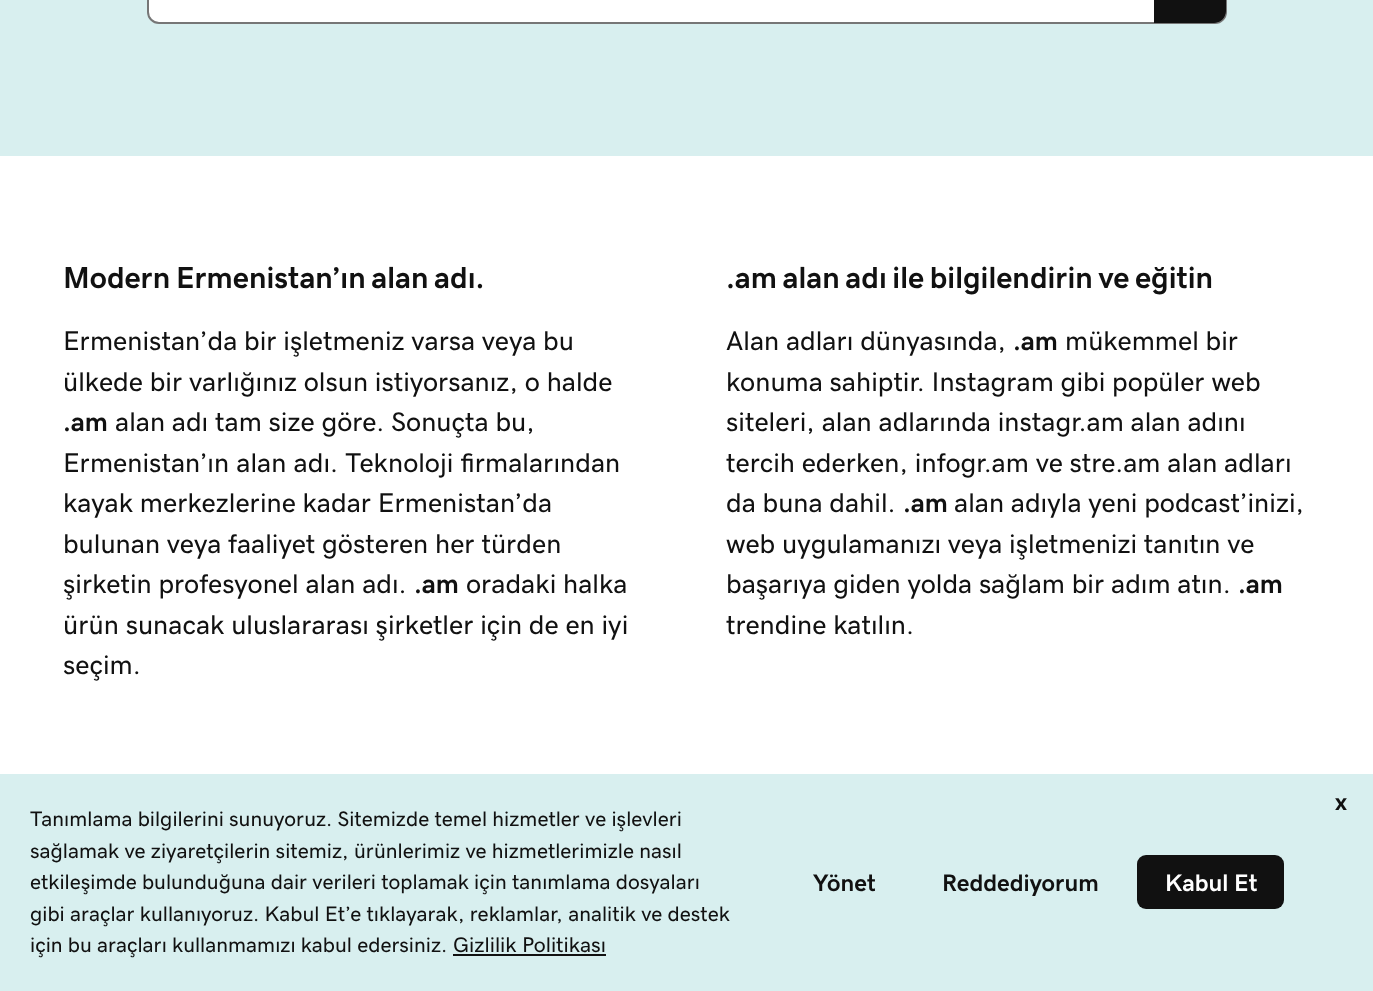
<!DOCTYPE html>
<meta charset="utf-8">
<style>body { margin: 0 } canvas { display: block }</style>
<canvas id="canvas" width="1373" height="991"></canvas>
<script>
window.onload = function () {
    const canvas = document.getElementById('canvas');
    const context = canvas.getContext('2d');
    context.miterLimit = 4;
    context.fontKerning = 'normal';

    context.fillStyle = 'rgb(255, 255, 255)';
    context.fillRect(0, 0, 1373, 991);
    context.fillStyle = 'rgb(216, 239, 239)';
    context.fillRect(0, 0, 1373, 156);
    context.fillStyle = 'rgb(255, 255, 255)';
    context.beginPath();
    context.roundRect(148, -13, 1078, 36, 11);
    context.fill();
    context.strokeStyle = 'rgb(118, 118, 118)';
    context.lineWidth = 2;
    context.stroke();
    context.save();
    context.beginPath();
    context.roundRect(149, -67, 1077, 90, 11);
    context.clip();
    context.fillStyle = 'rgb(17, 17, 17)';
    context.beginPath();
    context.moveTo(1154, -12);
    context.lineTo(1214, -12);
    context.bezierCurveTo(1220.5, -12, 1226, -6.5, 1226, 0);
    context.lineTo(1226, 11);
    context.bezierCurveTo(1226, 17.5, 1220.5, 23, 1214, 23);
    context.lineTo(1154, 23);
    context.closePath();
    context.fill();
    context.restore();
    context.fillStyle = 'rgb(216, 239, 239)';
    context.fillRect(0, 774, 1373, 217);
    context.fillStyle = 'rgb(17, 17, 17)';
    context.fillRect(453, 954, 153, 2);
    context.beginPath();
    context.roundRect(1137, 855, 147, 54, 9);
    context.fill();
    context.wordSpacing = '-1.75px';
    context.font = 'bold 30.6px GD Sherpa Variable';
    context.fillText('Modern Ermenistan’ın alan adı.', 63, 288);
    context.wordSpacing = '0px';
    context.font = '27px GD Sherpa Variable';
    context.fillText('Ermenistan’da bir işletmeniz varsa veya bu', 63, 350);
    context.fillText('ülkede bir varlığınız olsun istiyorsanız, o halde', 63, 391);
    context.font = 'bold 27px GD Sherpa Variable';
    context.fillText('.am', 63, 431);
    context.font = '27px GD Sherpa Variable';
    context.fillText('alan adı tam size göre. Sonuçta bu,', 115, 431);
    context.wordSpacing = '0.5px';
    context.fillText('Ermenistan’ın alan adı. Teknoloji firmalarından', 63, 472);
    context.wordSpacing = '0px';
    context.fillText('kayak merkezlerine kadar Ermenistan’da', 63, 512);
    context.fillText('bulunan veya faaliyet gösteren her türden', 63, 553);
    context.fillText('şirketin profesyonel alan adı.', 63, 593);
    context.font = 'bold 27px GD Sherpa Variable';
    context.fillText('.am', 414, 593);
    context.font = '27px GD Sherpa Variable';
    context.fillText('oradaki halka', 466, 593);
    context.fillText('ürün sunacak uluslararası şirketler için de en iyi', 63, 634);
    context.fillText('seçim.', 63, 674);
    context.wordSpacing = '-1.75px';
    context.font = 'bold 30.6px GD Sherpa Variable';
    context.fillText('.am alan adı ile bilgilendirin ve eğitin', 726, 288);
    context.wordSpacing = '0px';
    context.font = '27px GD Sherpa Variable';
    context.fillText('Alan adları dünyasında,', 726, 350);
    context.font = 'bold 27px GD Sherpa Variable';
    context.fillText('.am', 1013, 350);
    context.font = '27px GD Sherpa Variable';
    context.fillText('mükemmel bir', 1065, 350);
    context.fillText('konuma sahiptir. Instagram gibi popüler web', 726, 391);
    context.fillText('siteleri, alan adlarında instagr.am alan adını', 726, 431);
    context.fillText('tercih ederken, infogr.am ve stre.am alan adları', 726, 472);
    context.fillText('da buna dahil.', 726, 512);
    context.font = 'bold 27px GD Sherpa Variable';
    context.fillText('.am', 903, 512);
    context.font = '27px GD Sherpa Variable';
    context.fillText('alan adıyla yeni podcast’inizi,', 954, 512);
    context.fillText('web uygulamanızı veya işletmenizi tanıtın ve', 726, 553);
    context.fillText('başarıya giden yolda sağlam bir adım atın.', 726, 593);
    context.font = 'bold 27px GD Sherpa Variable';
    context.fillText('.am', 1238, 593);
    context.font = '27px GD Sherpa Variable';
    context.fillText('trendine katılın.', 726, 634);
    context.font = 'bold 24px "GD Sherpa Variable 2"';
    context.fillText('x', 1335, 810);
    context.font = '21px GD Sherpa Variable';
    context.fillText('Tanımlama bilgilerini sunuyoruz. Sitemizde temel hizmetler ve işlevleri', 30, 826);
    context.fillText('sağlamak ve ziyaretçilerin sitemiz, ürünlerimiz ve hizmetlerimizle nasıl', 30, 858);
    context.fillText('etkileşimde bulunduğuna dair verileri toplamak için tanımlama dosyaları', 30, 889);
    context.fillText('gibi araçlar kullanıyoruz. Kabul Et’e tıklayarak, reklamlar, analitik ve destek', 30, 921);
    context.fillText('için bu araçları kullanmamızı kabul edersiniz.', 30, 952);
    context.font = '21.25px GD Sherpa Variable';
    context.fillText('Gizlilik Politikası', 453, 952);
    context.font = 'bold 24px "GD Sherpa Variable 2"';
    context.fillText('Yönet', 813, 891);
    context.fillText('Reddediyorum', 942, 891);
    context.fillStyle = 'rgb(255, 255, 255)';
    context.fillText('Kabul Et', 1165, 891);
};
</script>
